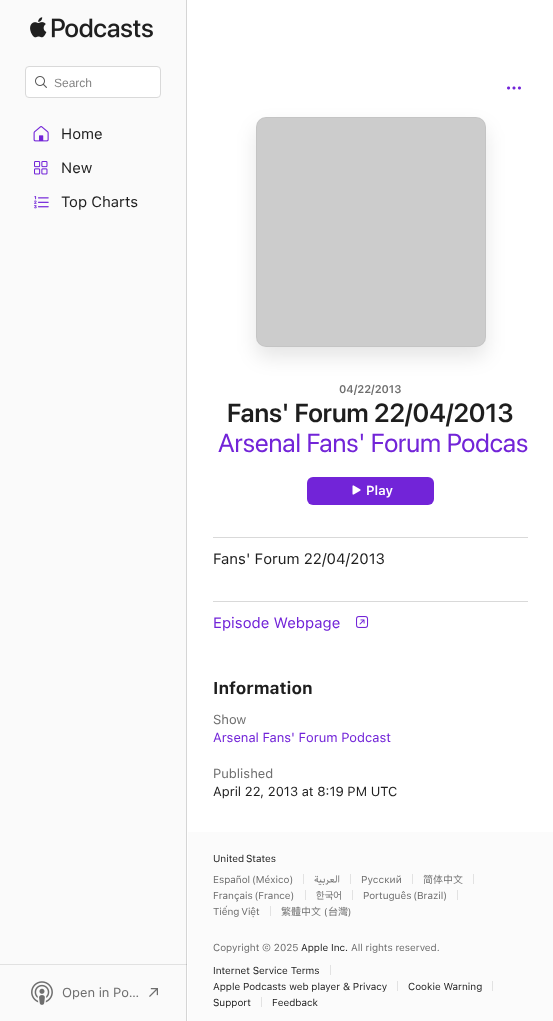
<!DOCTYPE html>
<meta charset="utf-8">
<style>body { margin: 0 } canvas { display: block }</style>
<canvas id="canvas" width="553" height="1021"></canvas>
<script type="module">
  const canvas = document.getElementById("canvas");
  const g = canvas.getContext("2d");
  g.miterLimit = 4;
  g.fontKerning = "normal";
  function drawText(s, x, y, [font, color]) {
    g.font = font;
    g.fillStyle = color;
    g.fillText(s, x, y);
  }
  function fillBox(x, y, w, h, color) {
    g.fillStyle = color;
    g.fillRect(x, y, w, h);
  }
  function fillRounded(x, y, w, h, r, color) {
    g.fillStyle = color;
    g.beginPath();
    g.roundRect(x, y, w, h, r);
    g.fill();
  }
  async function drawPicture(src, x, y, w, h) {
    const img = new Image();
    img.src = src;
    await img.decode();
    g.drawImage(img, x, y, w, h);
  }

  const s1 = ["12px Liberation Sans", "#858585"];
  const s2 = ["15px SF", "#1E1E1E"];
  const s3 = ["13px SF", "#6E6E6E"];
  const s4 = ["600 11px SF", "#6E6E6E"];
  const s5 = ["600 26px 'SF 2'", "#1E1E1E"];
  const s6 = ["26px 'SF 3'", "#7224D8"];
  const s7 = ["600 13px SF", "#FFFFFF"];
  const s8 = ["15px SF", "#7224D8"];
  const s9 = ["bold 17px SF", "#1E1E1E"];
  const s10 = ["13px SF", "#7224D8"];
  const s11 = ["13px SF", "#1E1E1E"];
  const s12 = ["10px SF", "#1E1E1E"];
  const s13 = ["10px SF", "#6E6E6E"];
  const s14 = ["10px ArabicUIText", "#6E6E6E"];
  const s15 = ["10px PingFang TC", "#6E6E6E"];
  const s16 = ["10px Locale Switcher", "#6E6E6E"];
  const s17 = ["10px 'SF 2'", "#6E6E6E"];

  fillBox(0, 0, 553, 1021, "#FFFFFF");
  fillBox(0, 0, 186, 1021, "#FAFAFA");
  fillBox(0, 964, 187, 1, "#E1E1E1");
  fillBox(186, 0, 1, 1021, "#D5D5D5");
  fillBox(186, 964, 1, 1, "#C0C0C0");
  await drawPicture("pic1.png", 30, 17, 123, 21);
  g.fillStyle = "#FFFFFF";
  g.beginPath();
  g.roundRect(25.5, 66.5, 135, 31, 3.5);
  g.fill();
  g.strokeStyle = "#D9D9D9";
  g.stroke();
  await drawPicture("pic2.png", 35, 76, 12, 12);
  drawText("Search", 54, 87, s1);
  await drawPicture("pic3.png", 33, 126, 16, 16);
  drawText("Home", 61, 139, s2);
  await drawPicture("pic4.png", 34, 161, 14, 14);
  drawText("New", 61, 173, s2);
  await drawPicture("pic5.png", 34, 196, 15, 13);
  drawText("Top Charts", 61, 207, s2);
  await drawPicture("pic6.png", 31, 981, 22, 24);
  drawText("Open in Po…", 62, 997, s3);
  await drawPicture("pic7.png", 149, 988, 9, 9);
  await drawPicture("pic8.png", 507, 86, 14, 4);
  g.fillStyle = "rgba(0, 0, 0, 0.1)";
  g.filter = "blur(10px)";
  g.beginPath();
  g.roundRect(256, 127, 230, 230, 10);
  g.fill();
  g.filter = "none";
  fillRounded(256, 117, 230, 230, 10, "#CCCCCC");
  g.beginPath();
  g.roundRect(256.5, 117.5, 229, 229, 9.5);
  g.strokeStyle = "rgba(128, 128, 128, 0.1)";
  g.stroke();
  drawText("04/22/2013", 339, 393, s4);
  drawText("Fans' Forum 22/04/2013", 227, 422, s5);
  drawText("Arsenal Fans' Forum Podcas", 218, 452, s6);
  fillRounded(307, 477, 127, 28, 6, "#7224D8");
  await drawPicture("pic9.png", 352, 485, 9, 10);
  drawText("Play", 366, 495, s7);
  fillBox(213, 537, 315, 1, "#D9D9D9");
  drawText("Fans' Forum 22/04/2013", 213, 564, s2);
  fillBox(213, 601, 315, 1, "#D9D9D9");
  drawText("Episode Webpage", 213, 628, s8);
  await drawPicture("pic10.png", 356, 616, 13, 12);
  drawText("Information", 213, 694, s9);
  drawText("Show", 213, 724, s3);
  drawText("Arsenal Fans' Forum Podcast", 213, 742, s10);
  drawText("Published", 213, 778, s3);
  drawText("April 22, 2013 at 8:19 PM UTC", 213, 796, s11);
  fillBox(188, 832, 365, 189, "#FBFBFB");
  g.wordSpacing = "-1px";
  drawText("United States", 213, 862, s12);
  drawText("Español (México)", 213, 883, s13);
  fillBox(303, 874, 1, 10, "#E2E2E2");
  g.wordSpacing = "0px";
  g.direction = "rtl";
  drawText("العربية", 340, 883, s14);
  fillBox(350, 874, 1, 10, "#E2E2E2");
  g.direction = "ltr";
  drawText("Русский", 361, 883, s13);
  fillBox(412, 874, 1, 10, "#E2E2E2");
  drawText("简体中文", 423, 883, s15);
  fillBox(473, 874, 1, 10, "#E2E2E2");
  g.wordSpacing = "-1px";
  drawText("Français (France)", 213, 899, s13);
  fillBox(305, 890, 1, 10, "#E2E2E2");
  g.wordSpacing = "0px";
  drawText("한국어", 316, 899, s16);
  fillBox(352, 890, 1, 10, "#E2E2E2");
  g.wordSpacing = "-1px";
  drawText("Português (Brazil)", 363, 899, s13);
  fillBox(457, 890, 1, 10, "#E2E2E2");
  drawText("Tiếng Việt", 213, 915, s13);
  fillBox(270, 906, 1, 10, "#E2E2E2");
  g.wordSpacing = "0px";
  drawText("繁體中文", 281, 915, s15);
  drawText("(", 324, 915, s17);
  drawText("台灣", 328, 915, s15);
  drawText(")", 348, 915, s17);
  drawText("Copyright © 2025", 213, 951, s13);
  drawText("Apple Inc.", 301, 951, s12);
  drawText("All rights reserved.", 351, 951, s13);
  drawText("Internet Service Terms", 213, 974, s12);
  fillBox(330, 965, 1, 10, "#E2E2E2");
  drawText("Apple Podcasts web player & Privacy", 213, 990, s12);
  fillBox(397, 981, 1, 10, "#E2E2E2");
  drawText("Cookie Warning", 408, 990, s12);
  fillBox(492, 981, 1, 10, "#E2E2E2");
  drawText("Support", 213, 1006, s12);
  fillBox(261, 997, 1, 10, "#E2E2E2");
  drawText("Feedback", 272, 1006, s12);
</script>
